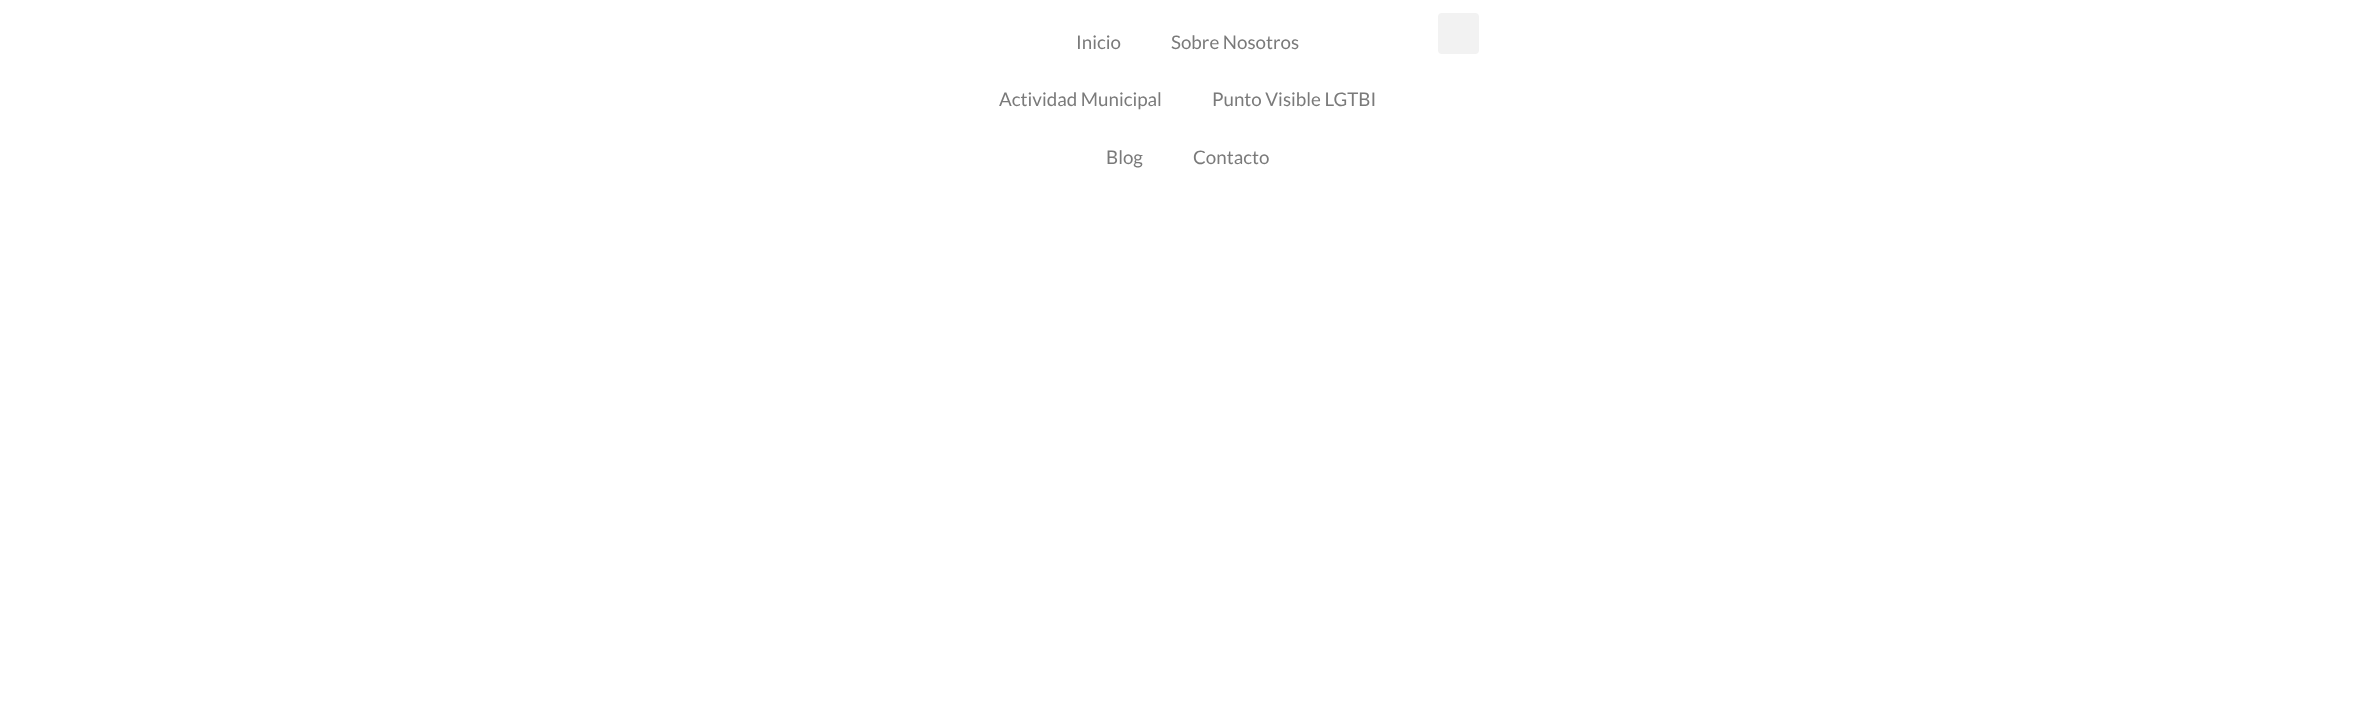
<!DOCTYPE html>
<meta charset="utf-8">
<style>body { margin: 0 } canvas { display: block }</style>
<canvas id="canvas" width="2374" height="724"></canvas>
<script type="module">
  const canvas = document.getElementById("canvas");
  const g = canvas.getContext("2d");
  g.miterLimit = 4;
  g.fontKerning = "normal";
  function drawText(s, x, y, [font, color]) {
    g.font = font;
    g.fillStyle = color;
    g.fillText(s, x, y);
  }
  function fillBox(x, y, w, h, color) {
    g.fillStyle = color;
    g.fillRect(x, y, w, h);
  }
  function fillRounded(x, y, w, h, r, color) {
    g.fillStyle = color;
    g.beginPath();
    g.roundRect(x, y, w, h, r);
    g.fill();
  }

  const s1 = ["18.75px Lato", "#7A7A7A"];

  fillBox(0, 0, 2374, 724, "#FFFFFF");
  drawText("Inicio", 1076, 49, s1);
  drawText("Sobre Nosotros", 1171, 49, s1);
  drawText("Actividad Municipal", 999, 106, s1);
  drawText("Punto Visible LGTBI", 1212, 106, s1);
  drawText("Blog", 1106, 164, s1);
  drawText("Contacto", 1193, 164, s1);
  fillRounded(1438, 13, 41, 41, 4, "#F2F2F2");
</script>
